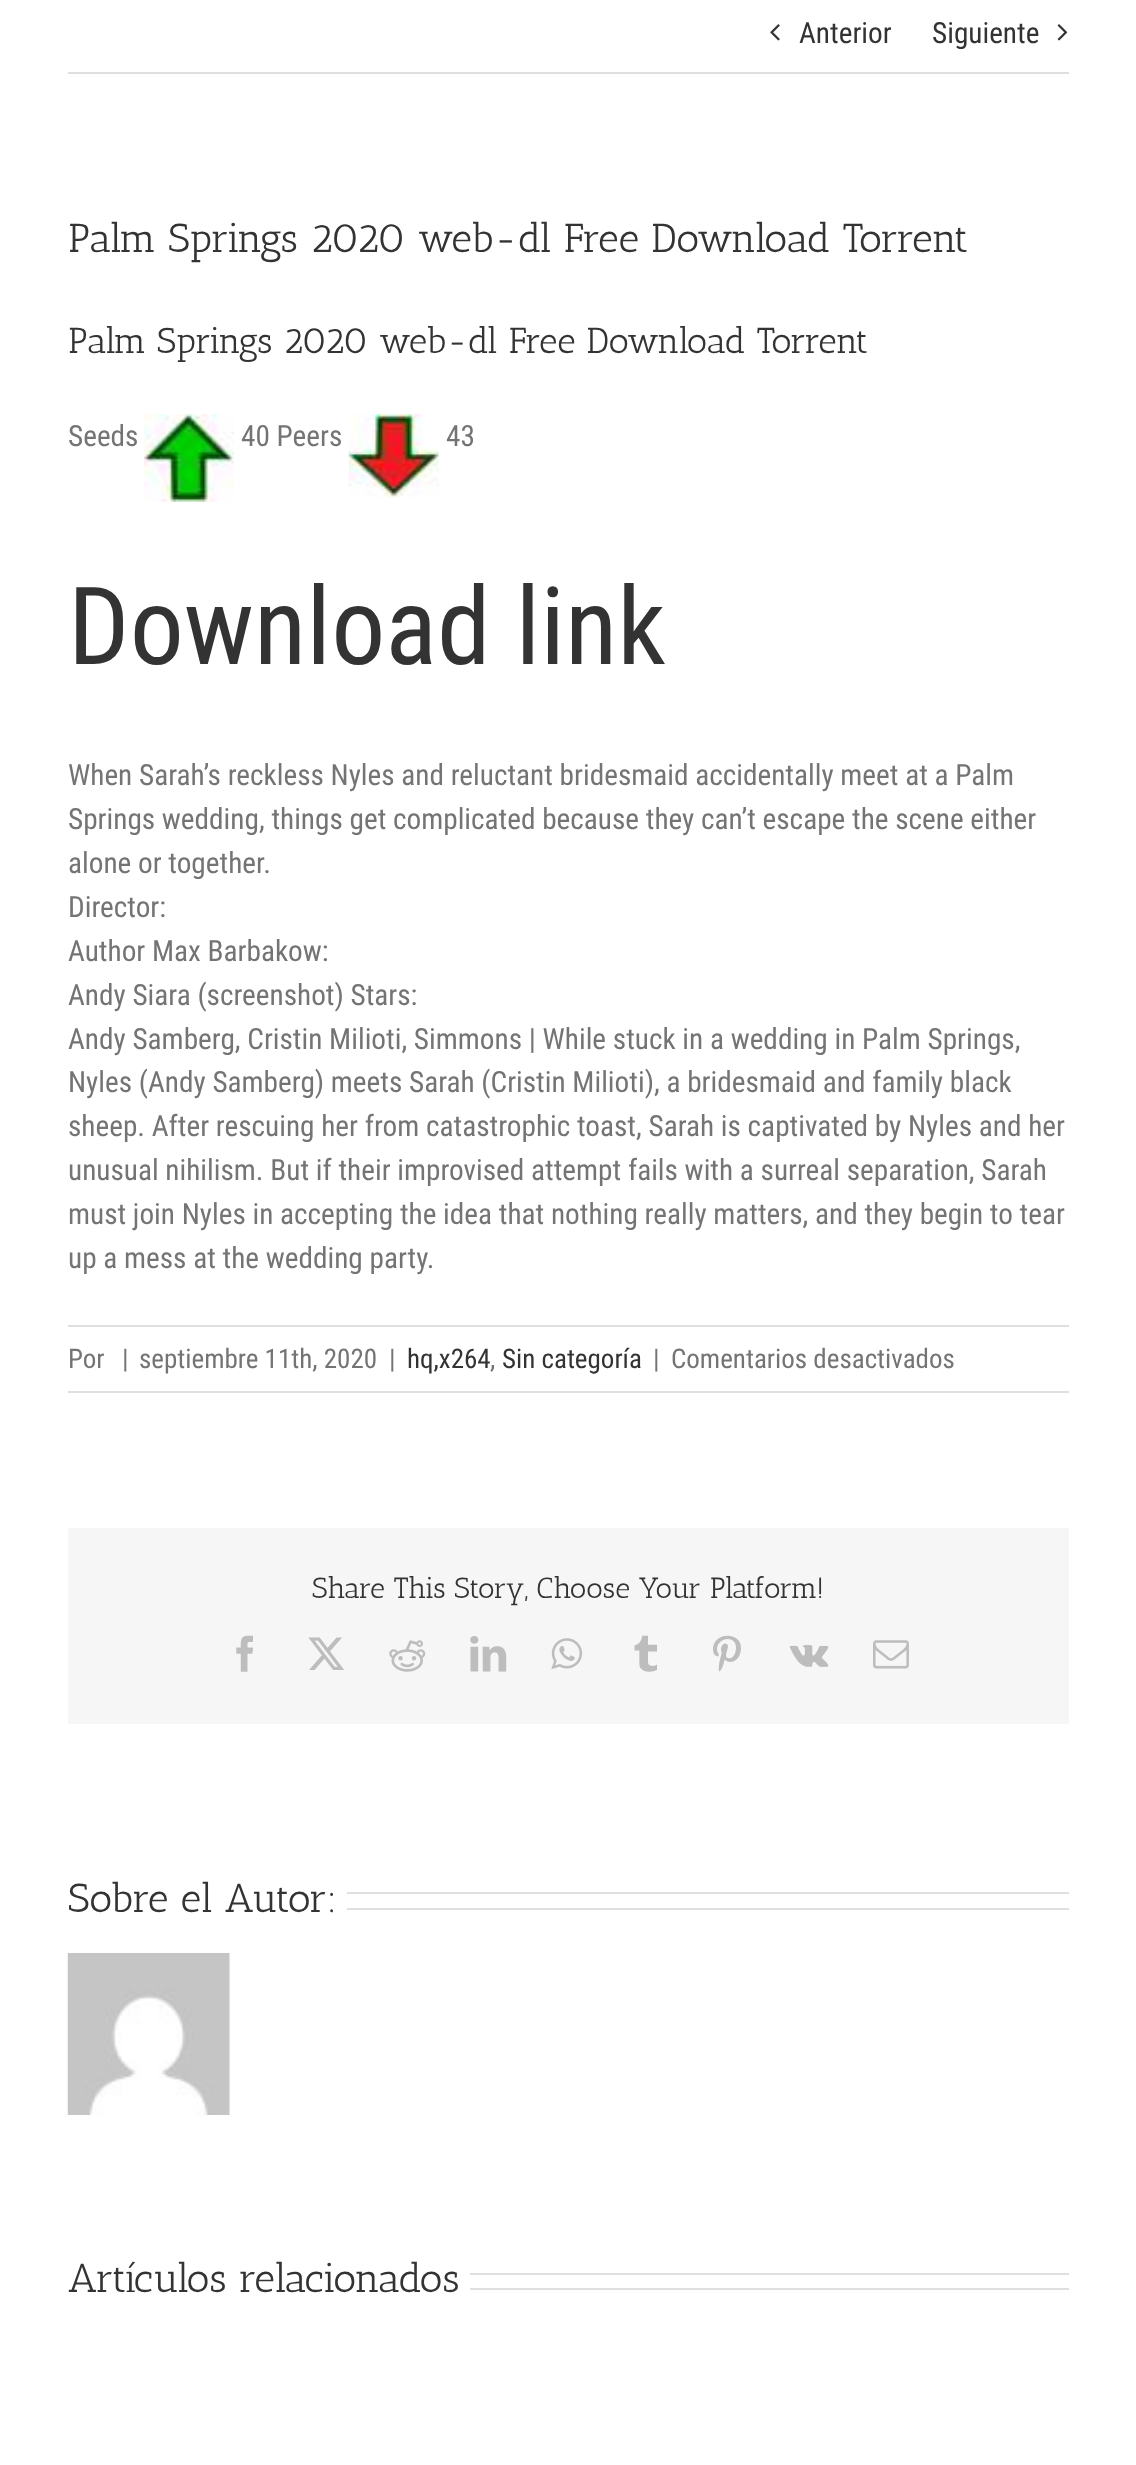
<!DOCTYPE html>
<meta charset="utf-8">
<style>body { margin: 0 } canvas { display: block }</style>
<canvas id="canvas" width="1136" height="2465"></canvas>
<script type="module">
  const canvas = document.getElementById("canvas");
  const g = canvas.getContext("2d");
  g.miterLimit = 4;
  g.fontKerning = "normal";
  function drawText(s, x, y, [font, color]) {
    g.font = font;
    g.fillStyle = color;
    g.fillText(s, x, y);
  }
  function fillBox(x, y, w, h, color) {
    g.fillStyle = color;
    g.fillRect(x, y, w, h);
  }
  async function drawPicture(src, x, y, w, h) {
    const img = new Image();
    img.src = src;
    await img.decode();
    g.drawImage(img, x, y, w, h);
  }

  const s1 = ["29.25px Roboto Condensed", "#333333"];
  const s2 = ["40.5px Antic Slab", "#333333"];
  const s3 = ["36px Antic Slab", "#333333"];
  const s4 = ["29.25px Roboto Condensed", "#747474"];
  const s5 = ["108px Roboto Condensed", "#333333"];
  const s6 = ["27px Roboto Condensed", "#747474"];
  const s7 = ["27px Roboto Condensed", "#333333"];
  const s8 = ["29.25px Antic Slab", "#333333"];

  fillBox(0, 0, 1136, 2465, "#FFFFFF");
  fillBox(68, 72, 1001, 2, "#E0DEDE");
  await drawPicture("pic1.png", 770, 24, 10, 17);
  drawText("Anterior", 799, 43, s1);
  drawText("Siguiente", 932, 43, s1);
  await drawPicture("pic2.png", 1057, 24, 11, 17);
  drawText("Palm Springs 2020 web-dl Free Download Torrent", 68, 252, s2);
  drawText("Palm Springs 2020 web-dl Free Download Torrent", 68, 353, s3);
  drawText("Seeds", 68, 446, s4);
  await drawPicture("pic3.png", 144, 414, 90, 88);
  drawText("40 Peers", 241, 446, s4);
  await drawPicture("pic4.png", 348, 414, 91, 84);
  drawText("43", 446, 446, s4);
  drawText("Download link", 68, 664, s5);
  drawText("When Sarah’s reckless Nyles and reluctant bridesmaid accidentally meet at a Palm", 68, 785, s4);
  drawText("Springs wedding, things get complicated because they can’t escape the scene either", 68, 829, s4);
  drawText("alone or together.", 68, 873, s4);
  drawText("Director:", 68, 917, s4);
  drawText("Author Max Barbakow:", 68, 961, s4);
  drawText("Andy Siara (screenshot) Stars:", 68, 1005, s4);
  drawText("Andy Samberg, Cristin Milioti, Simmons | While stuck in a wedding in Palm Springs,", 68, 1049, s4);
  drawText("Nyles (Andy Samberg) meets Sarah (Cristin Milioti), a bridesmaid and family black", 68, 1092, s4);
  drawText("sheep. After rescuing her from catastrophic toast, Sarah is captivated by Nyles and her", 68, 1136, s4);
  drawText("unusual nihilism. But if their improvised attempt fails with a surreal separation, Sarah", 68, 1180, s4);
  drawText("must join Nyles in accepting the idea that nothing really matters, and they begin to tear", 68, 1224, s4);
  drawText("up a mess at the wedding party.", 68, 1268, s4);
  fillBox(68, 1325, 1001, 2, "#E0DEDE");
  fillBox(68, 1391, 1001, 2, "#E0DEDE");
  drawText("Por", 68, 1368, s6);
  drawText("|", 122, 1368, s6);
  drawText("septiembre 11th, 2020", 139, 1368, s6);
  drawText("|", 389, 1368, s6);
  drawText("hq,x264", 407, 1368, s7);
  drawText(",", 490, 1368, s6);
  drawText("Sin categoría", 502, 1368, s7);
  drawText("|", 653, 1368, s6);
  drawText("Comentarios desactivados", 671, 1368, s6);
  fillBox(68, 1528, 1001, 196, "#F6F6F6");
  drawText("Share This Story, Choose Your Platform!", 312, 1598, s8);
  await drawPicture("pic5.png", 236, 1635, 17, 37);
  await drawPicture("pic6.png", 308, 1637, 36, 33);
  await drawPicture("pic7.png", 389, 1640, 37, 32);
  await drawPicture("pic8.png", 470, 1636, 37, 36);
  await drawPicture("pic9.png", 551, 1638, 32, 32);
  await drawPicture("pic10.png", 634, 1635, 23, 37);
  await drawPicture("pic11.png", 713, 1635, 28, 37);
  await drawPicture("pic12.png", 789, 1645, 40, 22);
  await drawPicture("pic13.png", 873, 1640, 36, 29);
  drawText("Sobre el Autor:", 68, 1912, s2);
  fillBox(347, 1892, 722, 2, "#E0DEDE");
  fillBox(347, 1908, 722, 2, "#E0DEDE");
  await drawPicture("pic14.png", 67, 1953, 163, 162);
  drawText("Artículos relacionados", 68, 2292, s2);
  fillBox(470, 2273, 599, 2, "#E0DEDE");
  fillBox(470, 2288, 599, 2, "#E0DEDE");
</script>
